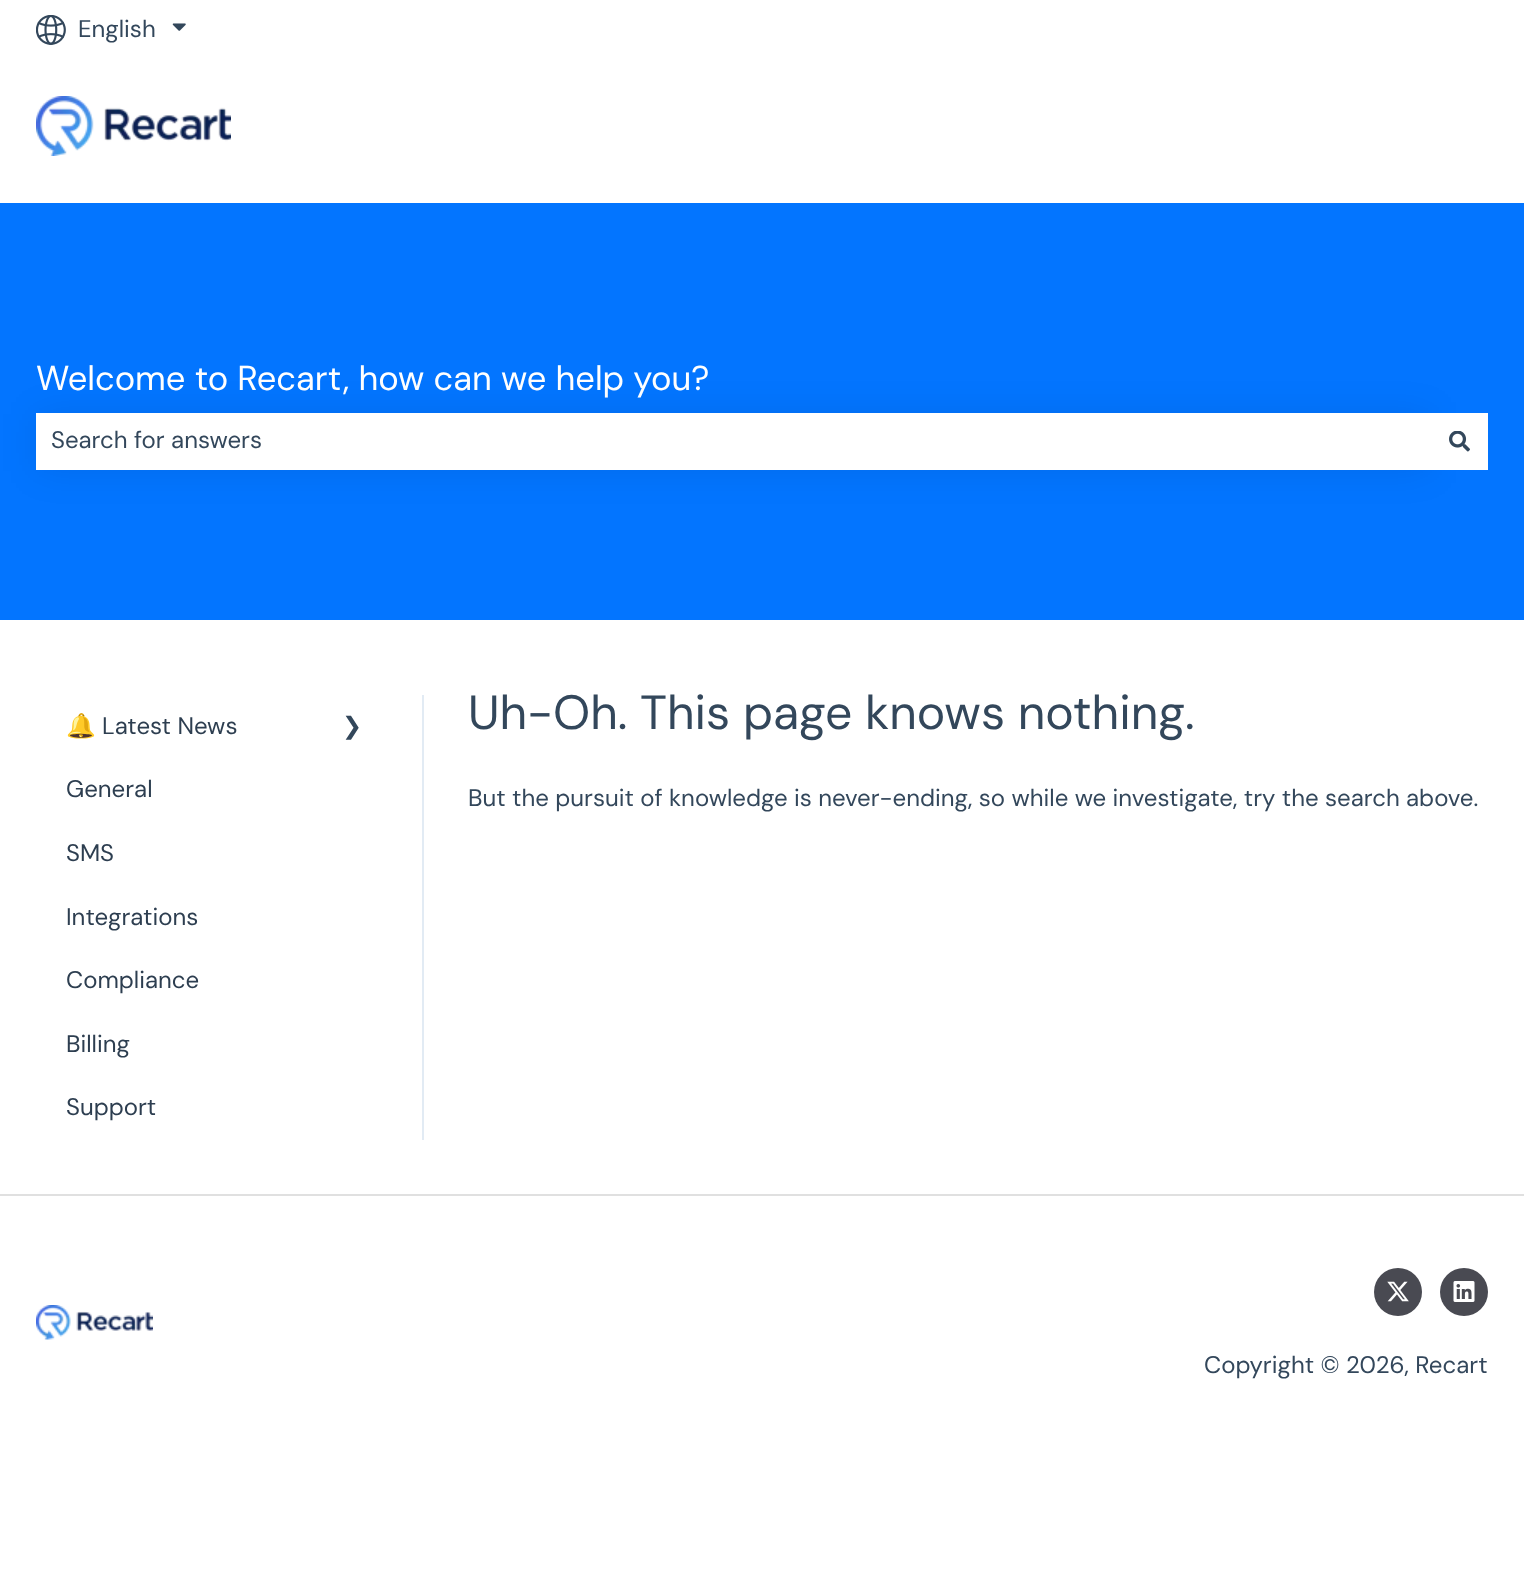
<!DOCTYPE html>
<meta charset="utf-8">
<style>body { margin: 0 } canvas { display: block }</style>
<canvas id="canvas" width="1524" height="1573"></canvas>
<script type="module">
  const canvas = document.getElementById("canvas");
  const g = canvas.getContext("2d");
  g.miterLimit = 4;
  g.fontKerning = "normal";
  function drawText(s, x, y, [font, color]) {
    g.font = font;
    g.fillStyle = color;
    g.fillText(s, x, y);
  }
  function fillBox(x, y, w, h, color) {
    g.fillStyle = color;
    g.fillRect(x, y, w, h);
  }
  async function drawPicture(src, x, y, w, h) {
    const img = new Image();
    img.src = src;
    await img.decode();
    g.drawImage(img, x, y, w, h);
  }

  const s1 = ["24px DM Sans", "#33475B"];
  const s2 = ["34.5px DM Sans", "#FFFFFF"];
  const s3 = ["24px Noto Color Emoji", "#2D3E50"];
  const s4 = ["24px DM Sans", "#2D3E50"];
  const s5 = ["24px DejaVu Sans", "#33475B"];
  const s6 = ["48px DM Sans", "#33475B"];

  fillBox(0, 0, 1524, 1573, "#FFFFFF");
  await drawPicture("pic1.png", 36, 15, 30, 30);
  drawText("English", 78, 37, s1);
  await drawPicture("pic2.png", 172, 23, 14, 8);
  await drawPicture("pic3.png", 36, 96, 195, 60);
  fillBox(0, 203, 1524, 417, "#0375FF");
  drawText("Welcome to Recart, how can we help you?", 36, 390, s2);
  g.fillStyle = "rgba(0, 0, 0, 0.08)";
  g.filter = "blur(18px)";
  g.beginPath();
  g.rect(36, 414, 1395, 57);
  g.fill();
  g.filter = "none";
  fillBox(36, 413, 1452, 57, "#FFFFFF");
  drawText("Search for answers", 51, 448, s1);
  await drawPicture("pic4.png", 1449, 431, 21, 21);
  fillBox(422, 695, 2, 445, "#E2EBF4");
  drawText("🔔", 66, 734, s3);
  drawText("Latest News", 102, 734, s4);
  drawText("❯", 342, 734, s5);
  drawText("General", 66, 797, s4);
  drawText("SMS", 66, 861, s4);
  drawText("Integrations", 66, 925, s4);
  drawText("Compliance", 66, 988, s4);
  drawText("Billing", 66, 1052, s4);
  drawText("Support", 66, 1115, s4);
  drawText("Uh-Oh. This page knows nothing.", 468, 729, s6);
  drawText("But the pursuit of knowledge is never-ending, so while we investigate, try the search above.", 468, 806, s1);
  fillBox(0, 1194, 1524, 2, "#E0E0E0");
  await drawPicture("pic5.png", 36, 1305, 117, 35);
  g.fillStyle = "#494A52";
  g.beginPath();
  g.arc(1398, 1292, 24, 0, Math.PI * 2);
  g.fill();
  await drawPicture("pic6.png", 1387, 1281, 22, 21);
  g.beginPath();
  g.arc(1464, 1292, 24, 0, Math.PI * 2);
  g.fill();
  await drawPicture("pic7.png", 1453, 1281, 22, 21);
  drawText("Copyright © 2026, Recart", 1204, 1373, s1);
</script>
